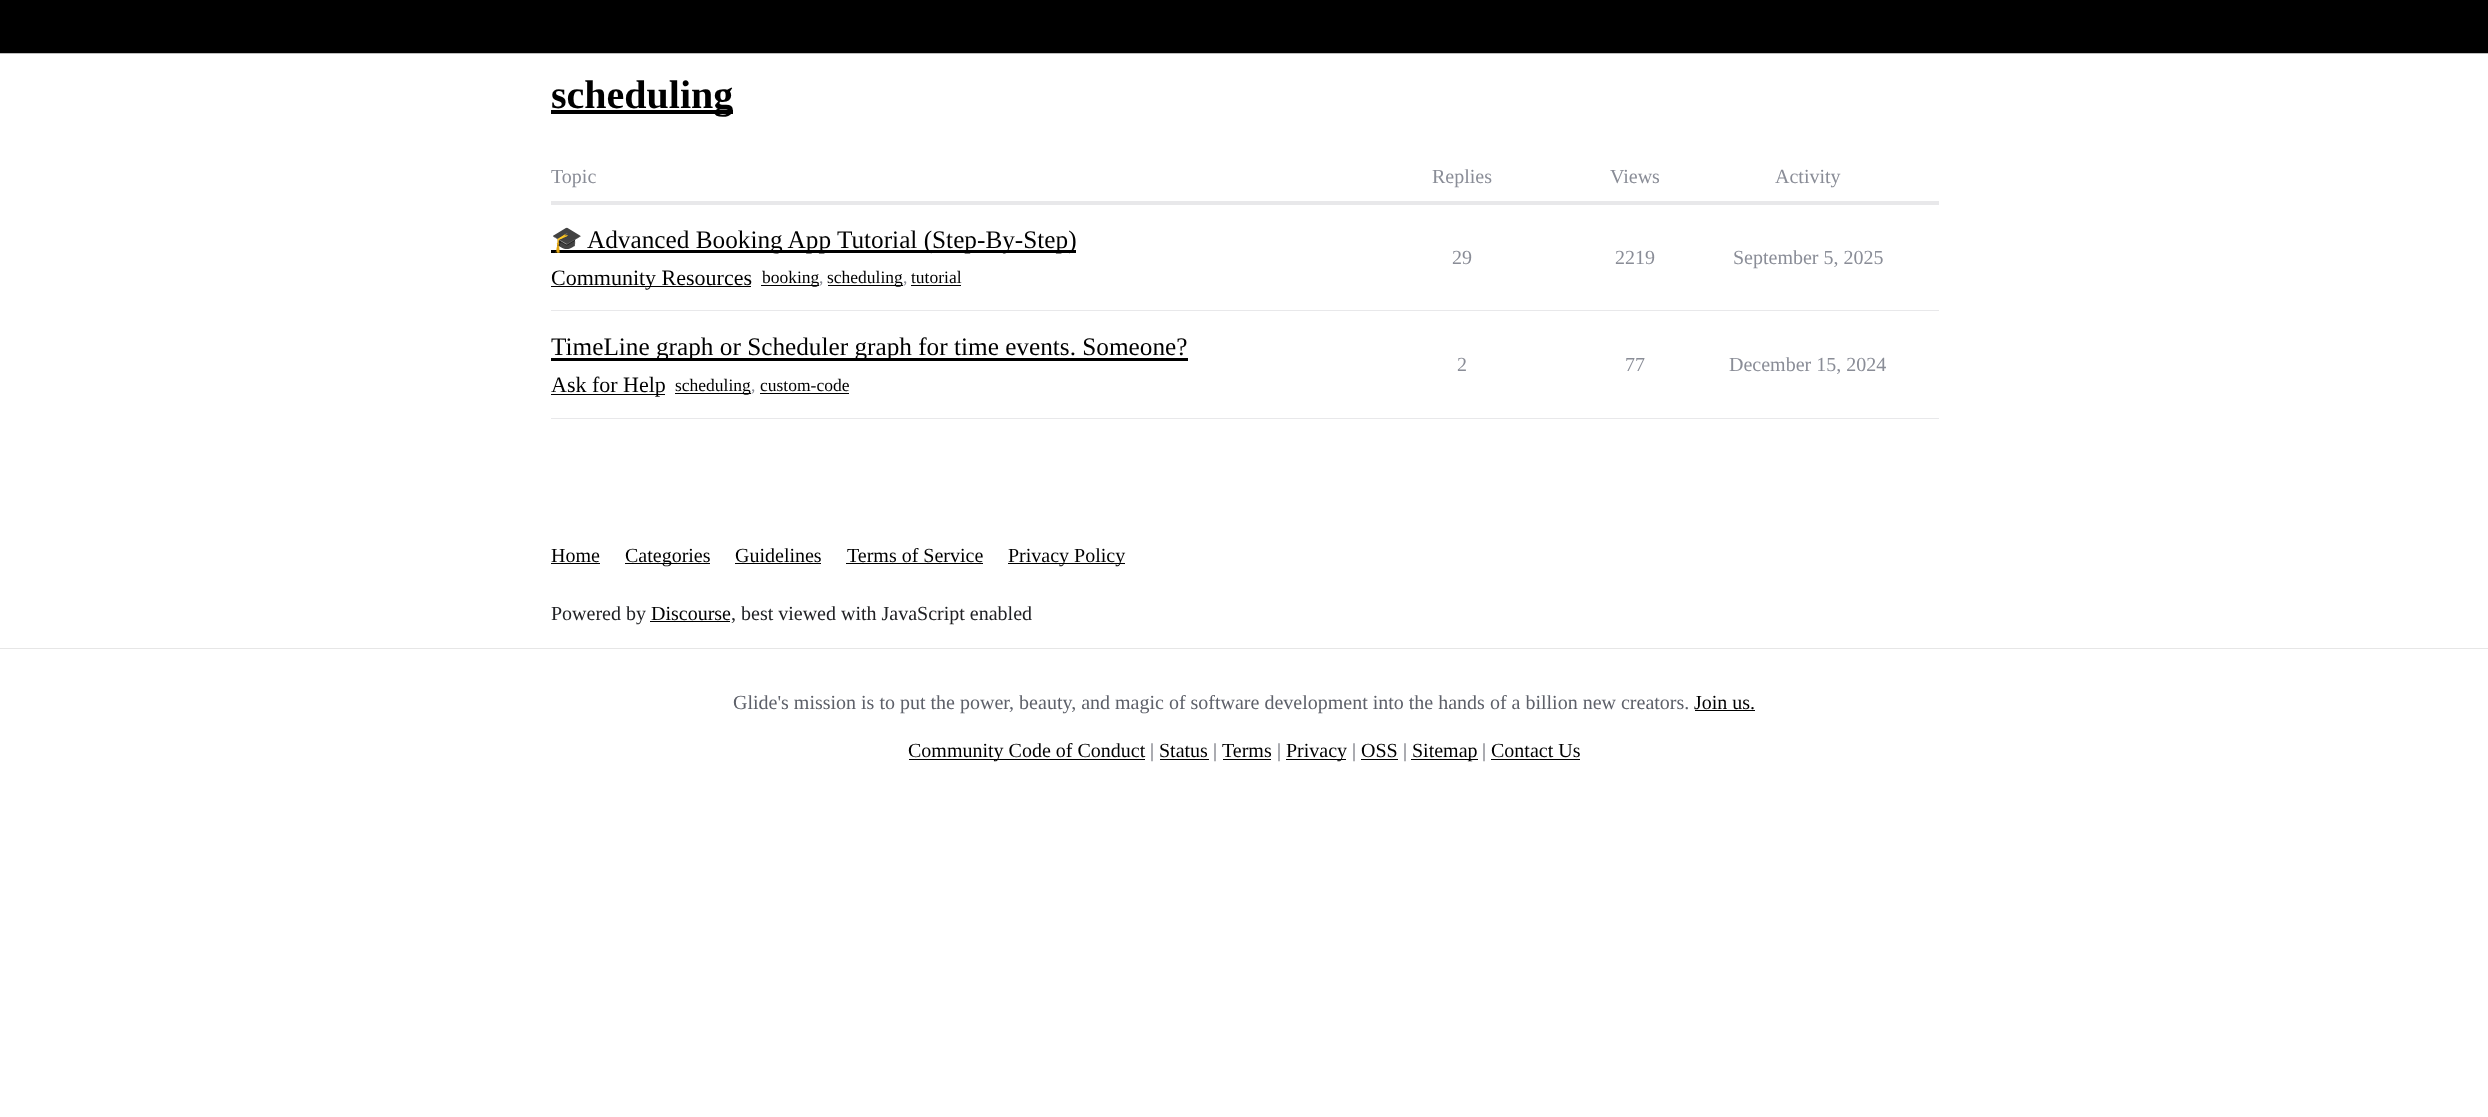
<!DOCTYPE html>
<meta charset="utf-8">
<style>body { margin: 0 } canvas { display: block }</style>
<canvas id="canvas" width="2488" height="1117"></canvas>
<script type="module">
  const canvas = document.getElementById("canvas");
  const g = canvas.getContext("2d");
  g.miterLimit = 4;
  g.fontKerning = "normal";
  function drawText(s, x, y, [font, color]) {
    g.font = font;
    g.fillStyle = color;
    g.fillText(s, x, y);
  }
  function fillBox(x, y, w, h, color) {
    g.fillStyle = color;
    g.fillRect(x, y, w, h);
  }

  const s1 = ["bold 40px Liberation Serif", "#000000"];
  const s2 = ["20px Liberation Serif", "#8A8D97"];
  const s3 = ["25.25px Noto Color Emoji", "#000000"];
  const s4 = ["25.25px Liberation Serif", "#000000"];
  const s5 = ["22px Liberation Serif", "#000000"];
  const s6 = ["17.5px Liberation Serif", "#000000"];
  const s7 = ["17.5px Liberation Serif", "#8A8D97"];
  const s8 = ["20px Liberation Serif", "#000000"];
  const s9 = ["20px Liberation Serif", "#202124"];
  const s10 = ["20px Liberation Serif", "#5E616A"];

  fillBox(0, 0, 2488, 1117, "#FFFFFF");
  fillBox(0, 0, 2488, 53, "#000000");
  fillBox(0, 53, 2488, 1, "#BDBDBD");
  fillBox(551, 110, 182, 4, "#000000");
  drawText("scheduling", 551, 108, s1);
  drawText("Topic", 551, 183, s2);
  drawText("Replies", 1432, 183, s2);
  drawText("Views", 1610, 183, s2);
  drawText("Activity", 1775, 183, s2);
  fillBox(551, 201, 1388, 4, "#E8E8EA");
  fillBox(551, 310, 1388, 1, "#E8E8EA");
  fillBox(551, 250, 525, 3, "#000000");
  g.save();
  g.beginPath();
  g.rect(551, 163, 1388, 256);
  g.clip();
  drawText("🎓", 551, 248, s3);
  g.restore();
  drawText("Advanced Booking App Tutorial (Step-By-Step)", 587, 248, s4);
  fillBox(551, 286, 200, 1, "#000000");
  drawText("Community Resources", 551, 285, s5);
  fillBox(761, 285, 58, 1, "#000000");
  drawText("booking", 762, 283, s6);
  drawText(",", 819, 283, s7);
  fillBox(828, 285, 75, 1, "#000000");
  drawText("scheduling", 827, 283, s6);
  drawText(",", 903, 283, s7);
  drawText("tutorial", 911, 283, s6);
  fillBox(911, 285, 50, 1, "#000000");
  drawText("29", 1452, 264, s2);
  drawText("2219", 1615, 264, s2);
  drawText("September 5, 2025", 1733, 264, s2);
  fillBox(551, 418, 1388, 1, "#E8E8EA");
  fillBox(551, 358, 637, 3, "#000000");
  drawText("TimeLine graph or Scheduler graph for time events. Someone?", 551, 355, s4);
  fillBox(551, 394, 114, 1, "#000000");
  drawText("Ask for Help", 551, 392, s5);
  fillBox(675, 393, 76, 1, "#000000");
  drawText("scheduling", 675, 391, s6);
  drawText(",", 751, 391, s7);
  drawText("custom-code", 760, 391, s6);
  fillBox(760, 393, 89, 1, "#000000");
  drawText("2", 1457, 371, s2);
  drawText("77", 1625, 371, s2);
  drawText("December 15, 2024", 1729, 371, s2);
  drawText("Home", 551, 562, s8);
  fillBox(551, 563, 49, 1, "#000000");
  fillBox(625, 563, 85, 1, "#000000");
  drawText("Categories", 625, 562, s8);
  drawText("Guidelines", 735, 562, s8);
  fillBox(735, 563, 86, 1, "#000000");
  drawText("Terms of Service", 847, 562, s8);
  fillBox(846, 563, 137, 1, "#000000");
  fillBox(1008, 563, 117, 1, "#000000");
  drawText("Privacy Policy", 1008, 562, s8);
  drawText("Powered by", 551, 620, s9);
  drawText("Discourse", 651, 620, s8);
  fillBox(650, 621, 80, 1, "#000000");
  drawText(", best viewed with JavaScript enabled", 731, 620, s9);
  fillBox(0, 648, 2488, 1, "#E6E6E6");
  drawText("Glide's mission is to put the power, beauty, and magic of software development into the hands of a billion new creators.", 733, 709, s10);
  drawText("Join us.", 1694, 709, s8);
  fillBox(1695, 710, 60, 1, "#000000");
  fillBox(909, 759, 236, 1, "#000000");
  drawText("Community Code of Conduct", 908, 757, s8);
  drawText("|", 1150, 757, s10);
  drawText("Status", 1159, 757, s8);
  fillBox(1160, 759, 49, 1, "#000000");
  drawText("|", 1213, 757, s10);
  drawText("Terms", 1222, 757, s8);
  fillBox(1223, 759, 48, 1, "#000000");
  drawText("|", 1277, 757, s10);
  fillBox(1286, 759, 60, 1, "#000000");
  drawText("Privacy", 1286, 757, s8);
  drawText("|", 1352, 757, s10);
  drawText("OSS", 1361, 757, s8);
  fillBox(1361, 759, 37, 1, "#000000");
  drawText("|", 1403, 757, s10);
  fillBox(1411, 759, 67, 1, "#000000");
  drawText("Sitemap", 1412, 757, s8);
  drawText("|", 1482, 757, s10);
  drawText("Contact Us", 1491, 757, s8);
  fillBox(1491, 759, 89, 1, "#000000");
</script>
